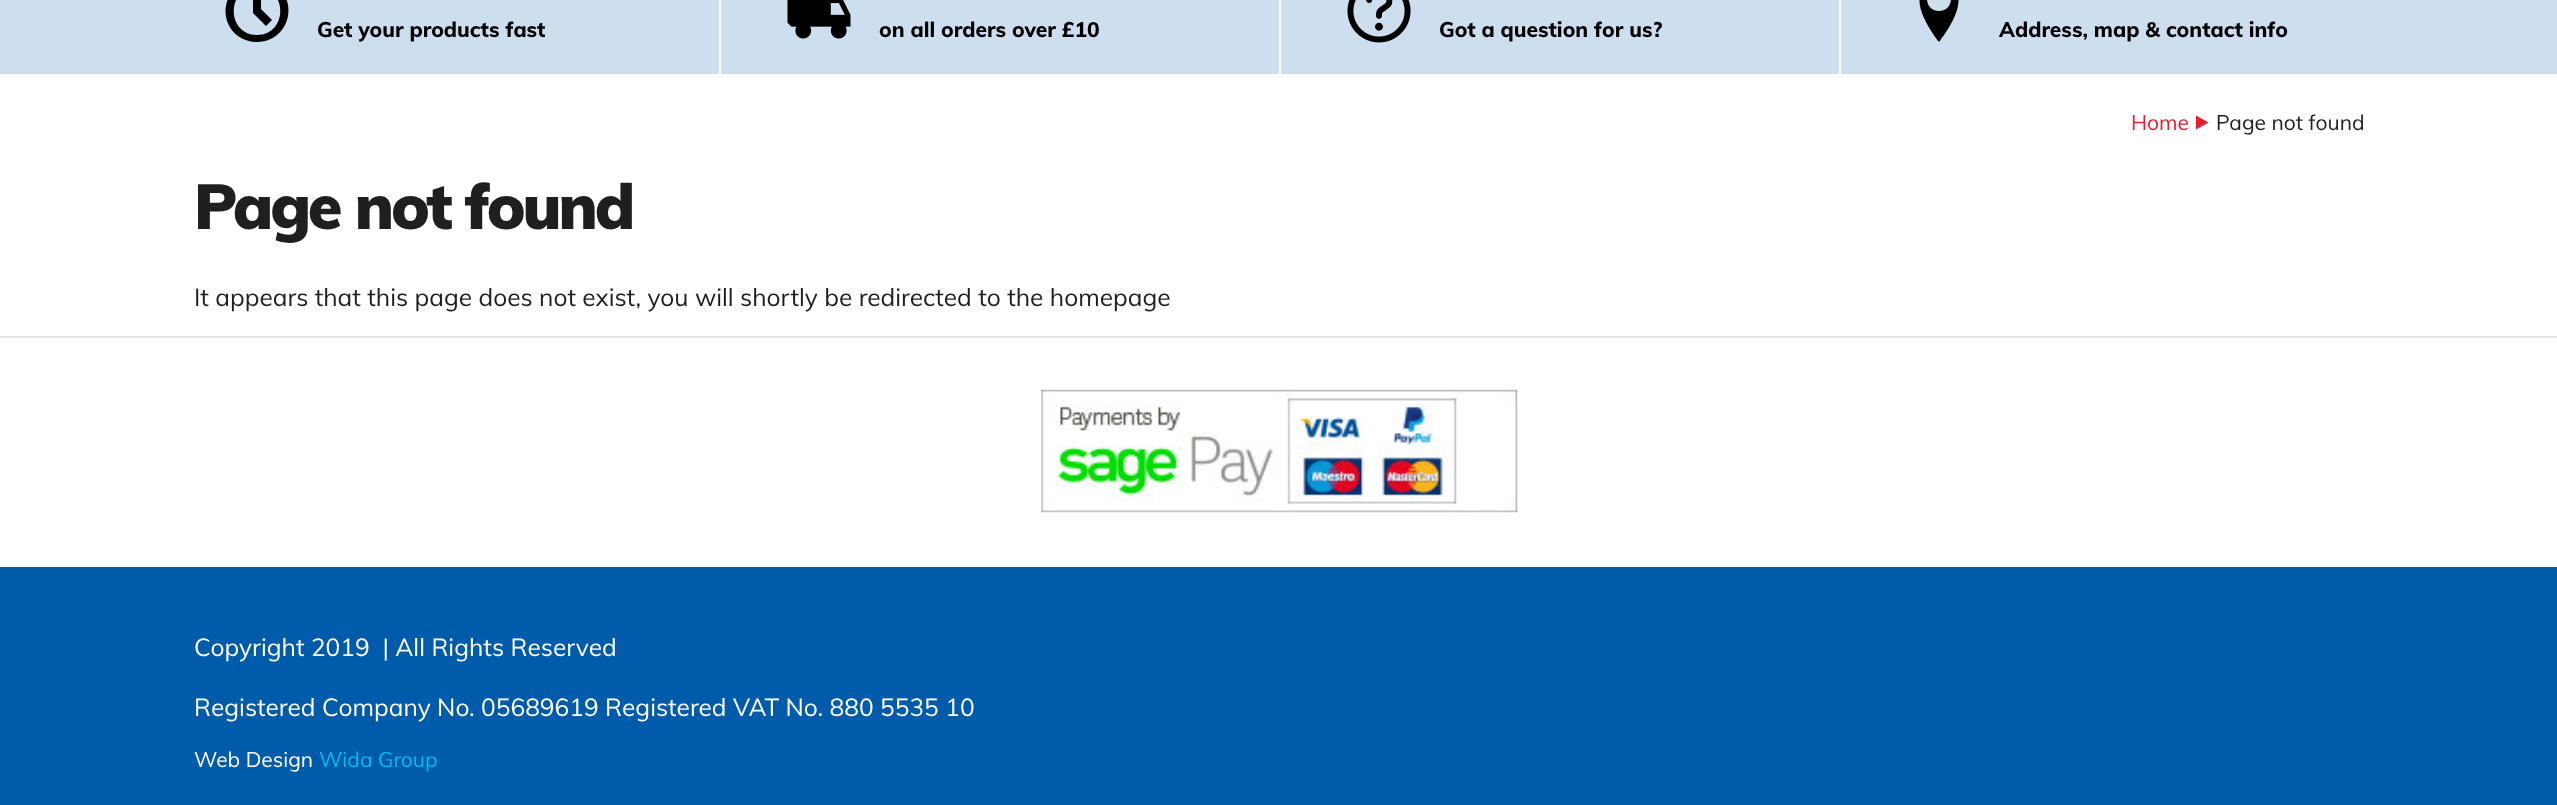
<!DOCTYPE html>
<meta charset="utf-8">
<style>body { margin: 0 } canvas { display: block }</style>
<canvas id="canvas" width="2557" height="805"></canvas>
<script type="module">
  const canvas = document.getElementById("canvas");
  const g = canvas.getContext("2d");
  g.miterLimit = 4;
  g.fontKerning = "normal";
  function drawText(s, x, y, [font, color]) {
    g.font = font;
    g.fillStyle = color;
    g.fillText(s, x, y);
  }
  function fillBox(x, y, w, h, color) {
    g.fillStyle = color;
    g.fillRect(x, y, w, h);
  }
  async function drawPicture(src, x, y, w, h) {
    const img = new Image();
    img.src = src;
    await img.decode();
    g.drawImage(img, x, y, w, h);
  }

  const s1 = ["800 21px Muli", "#000000"];
  const s2 = ["21px Muli", "#EC1B30"];
  const s3 = ["21px Muli", "#1F1F1F"];
  const s4 = ["900 63px Muli", "#1F1F1F"];
  const s5 = ["24.5px Muli", "#1F1F1F"];
  const s6 = ["24.5px Muli", "#FFFFFF"];
  const s7 = ["21px Muli", "#FFFFFF"];
  const s8 = ["21px Muli", "#01BAF3"];

  fillBox(0, 0, 2557, 805, "#FFFFFF");
  fillBox(0, 0, 2557, 74, "#CDDEEE");
  g.fillStyle = "#000000";
  g.beginPath();
  g.moveTo(266, 26);
  g.lineTo(253, 13);
  g.lineTo(253, -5);
  g.lineTo(261, -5);
  g.lineTo(261, 9);
  g.lineTo(272, 20);
  g.closePath();
  g.moveTo(257, -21);
  g.bezierCurveTo(227, -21, 214, 18, 238, 36);
  g.bezierCurveTo(244, 40, 250, 42, 257, 42);
  g.bezierCurveTo(287, 42, 300, 4, 276, -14);
  g.bezierCurveTo(271, -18, 264, -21, 257, -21);
  g.closePath();
  g.moveTo(257, 35);
  g.bezierCurveTo(226, 35, 226, -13, 257, -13);
  g.bezierCurveTo(288, -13, 288, 35, 257, 35);
  g.closePath();
  g.fill();
  drawText("Get your products fast", 317, 37, s1);
  fillBox(719, 0, 2, 74, "#FFFFFF");
  await drawPicture("pic1.png", 787, 0, 64, 39);
  drawText("on all orders over £10", 879, 37, s1);
  fillBox(1279, 0, 2, 74, "#FFFFFF");
  await drawPicture("pic2.png", 1347, 0, 64, 43);
  drawText("Got a question for us?", 1439, 37, s1);
  fillBox(1839, 0, 2, 74, "#FFFFFF");
  g.fillStyle = "#000000";
  g.beginPath();
  g.moveTo(1939, -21);
  g.bezierCurveTo(1934, -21, 1929, -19, 1925, -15);
  g.bezierCurveTo(1910, 1, 1929, 29, 1939, 42);
  g.bezierCurveTo(1949, 29, 1968, 1, 1953, -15);
  g.bezierCurveTo(1949, -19, 1944, -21, 1939, -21);
  g.closePath();
  g.moveTo(1939, 11);
  g.bezierCurveTo(1923, 11, 1923, -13, 1939, -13);
  g.bezierCurveTo(1955, -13, 1955, 11, 1939, 11);
  g.closePath();
  g.fill();
  drawText("Address, map & contact info", 1999, 37, s1);
  drawText("Home", 2131, 130, s2);
  g.beginPath();
  g.moveTo(2196, 129.5);
  g.lineTo(2196, 115.5);
  g.lineTo(2208.5, 122.5);
  g.closePath();
  g.fill();
  drawText("Page not found", 2216, 130, s3);
  g.letterSpacing = "-3.1px";
  drawText("Page not found", 194, 229, s4);
  g.letterSpacing = "0px";
  drawText("It appears that this page does not exist, you will shortly be redirected to the homepage", 194, 306, s5);
  fillBox(0, 336, 2557, 2, "#E3E3E3");
  await drawPicture("pic3.png", 1041, 389, 477, 124);
  fillBox(0, 567, 2557, 238, "#005BAA");
  drawText("Copyright 2019  | All Rights Reserved", 194, 656, s6);
  drawText("Registered Company No. 05689619 Registered VAT No. 880 5535 10", 194, 716, s6);
  drawText("Web Design", 194, 767, s7);
  drawText("Wida Group", 319, 767, s8);
</script>
